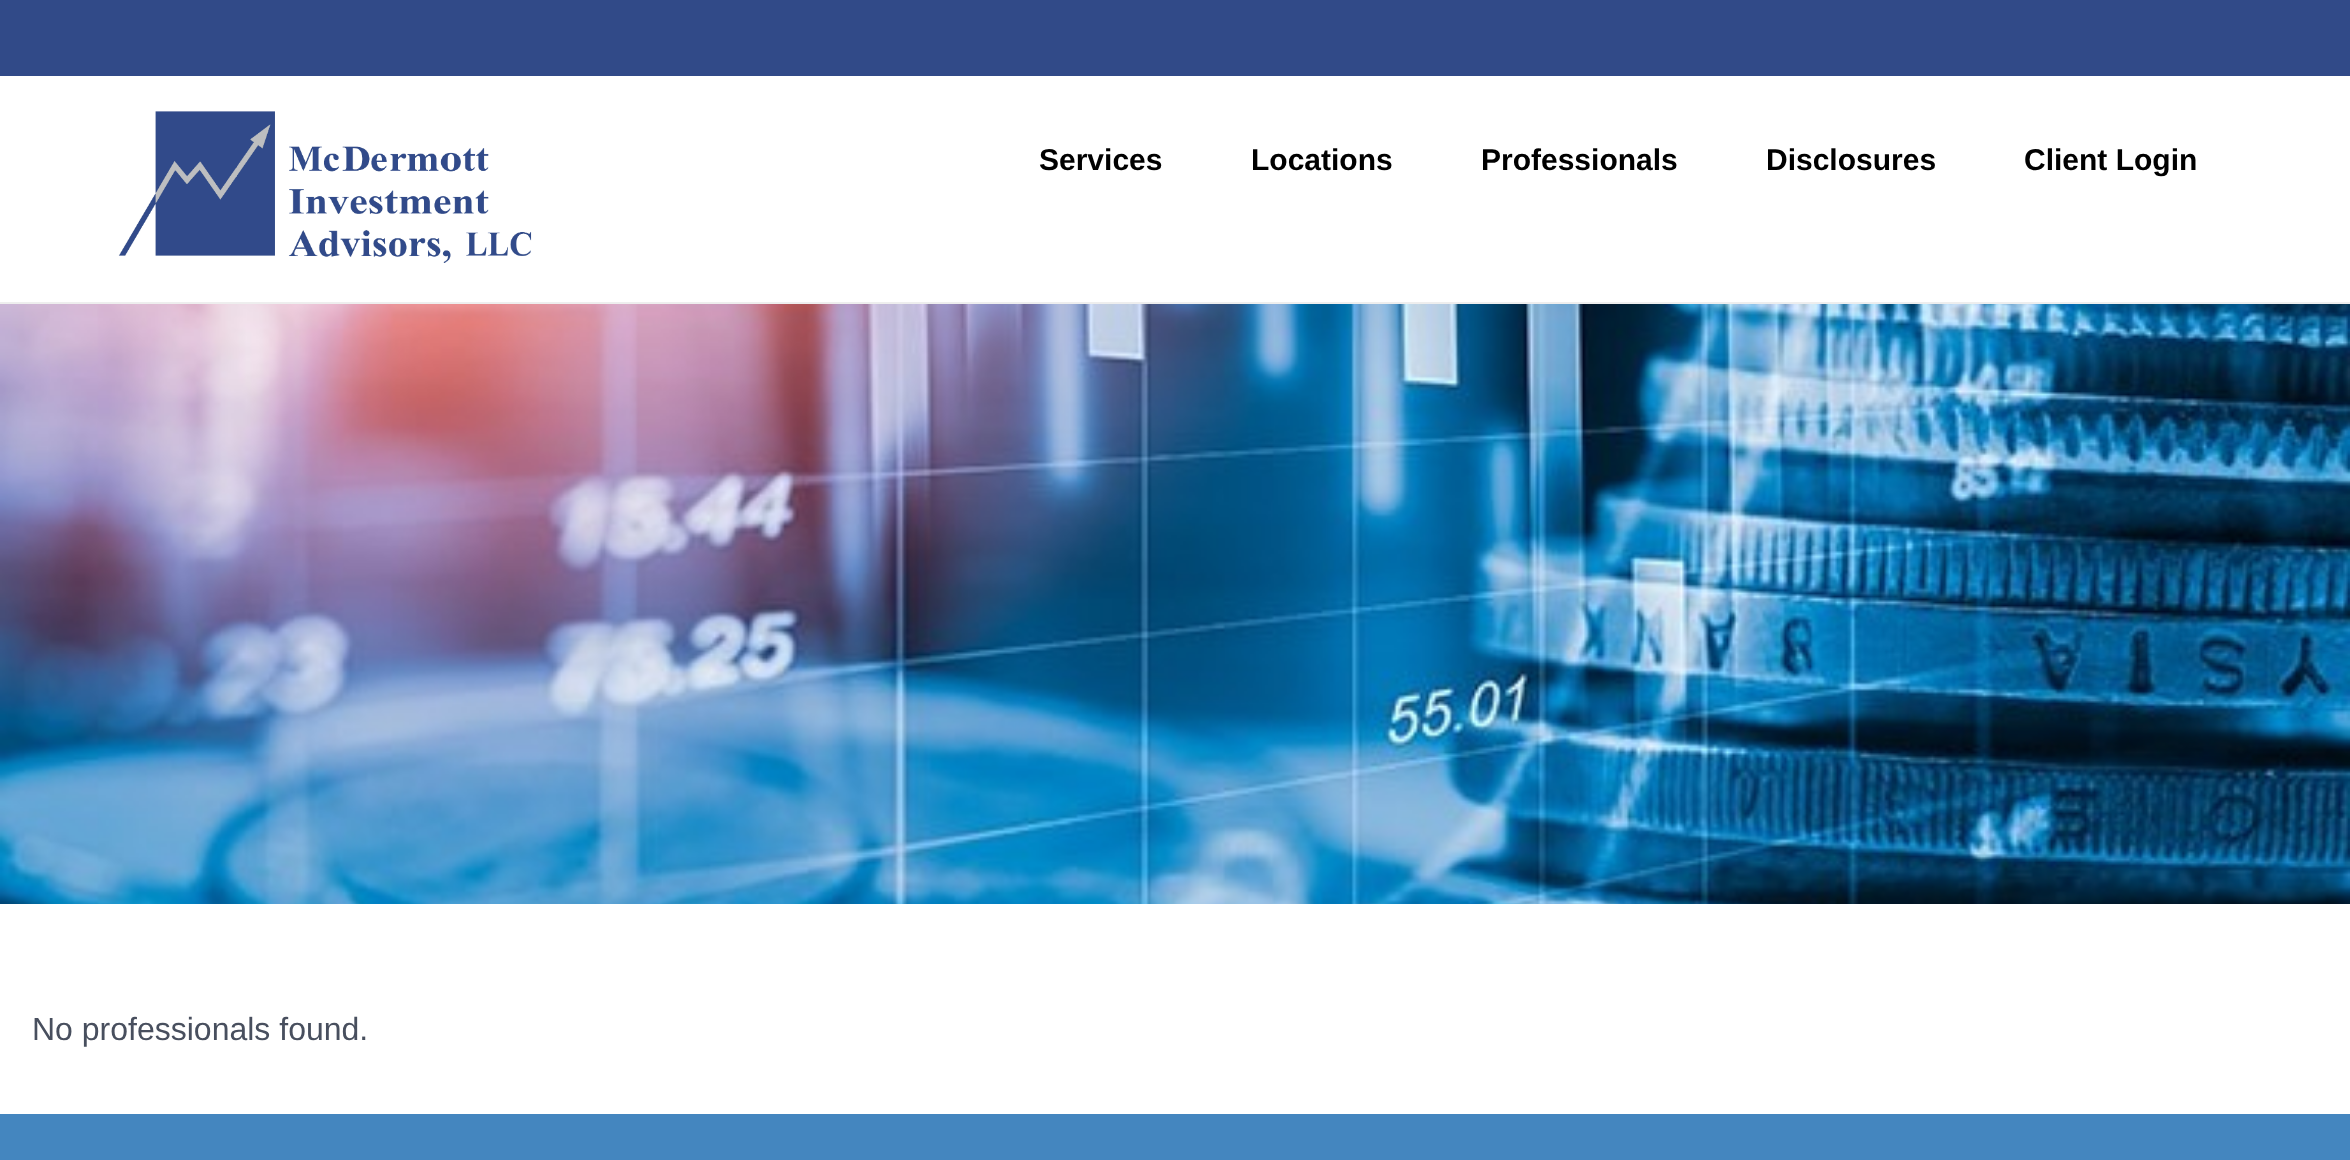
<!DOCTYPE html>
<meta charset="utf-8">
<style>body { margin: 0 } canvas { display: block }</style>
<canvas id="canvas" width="2350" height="1160"></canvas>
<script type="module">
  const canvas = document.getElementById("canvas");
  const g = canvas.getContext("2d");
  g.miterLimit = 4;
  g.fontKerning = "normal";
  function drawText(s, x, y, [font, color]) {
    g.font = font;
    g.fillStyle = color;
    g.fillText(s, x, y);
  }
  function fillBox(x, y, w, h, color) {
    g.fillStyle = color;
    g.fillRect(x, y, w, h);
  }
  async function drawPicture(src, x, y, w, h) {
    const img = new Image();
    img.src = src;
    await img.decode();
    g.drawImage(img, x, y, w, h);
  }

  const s1 = ["bold 30px Liberation Sans", "#000000"];
  const s2 = ["32px Liberation Sans", "#484F5E"];

  fillBox(0, 0, 2350, 1160, "#FFFFFF");
  fillBox(0, 302, 2350, 2, "#EEEEEE");
  fillBox(0, 0, 2350, 76, "#314A88");
  await drawPicture("pic1.png", 118, 111, 414, 152);
  drawText("Services", 1039, 170, s1);
  drawText("Locations", 1251, 170, s1);
  drawText("Professionals", 1481, 170, s1);
  drawText("Disclosures", 1766, 170, s1);
  drawText("Client Login", 2024, 170, s1);
  await drawPicture("pic2.png", 0, 304, 2350, 600);
  drawText("No professionals found.", 32, 1040, s2);
  fillBox(0, 1114, 2350, 46, "#4486BF");
</script>
